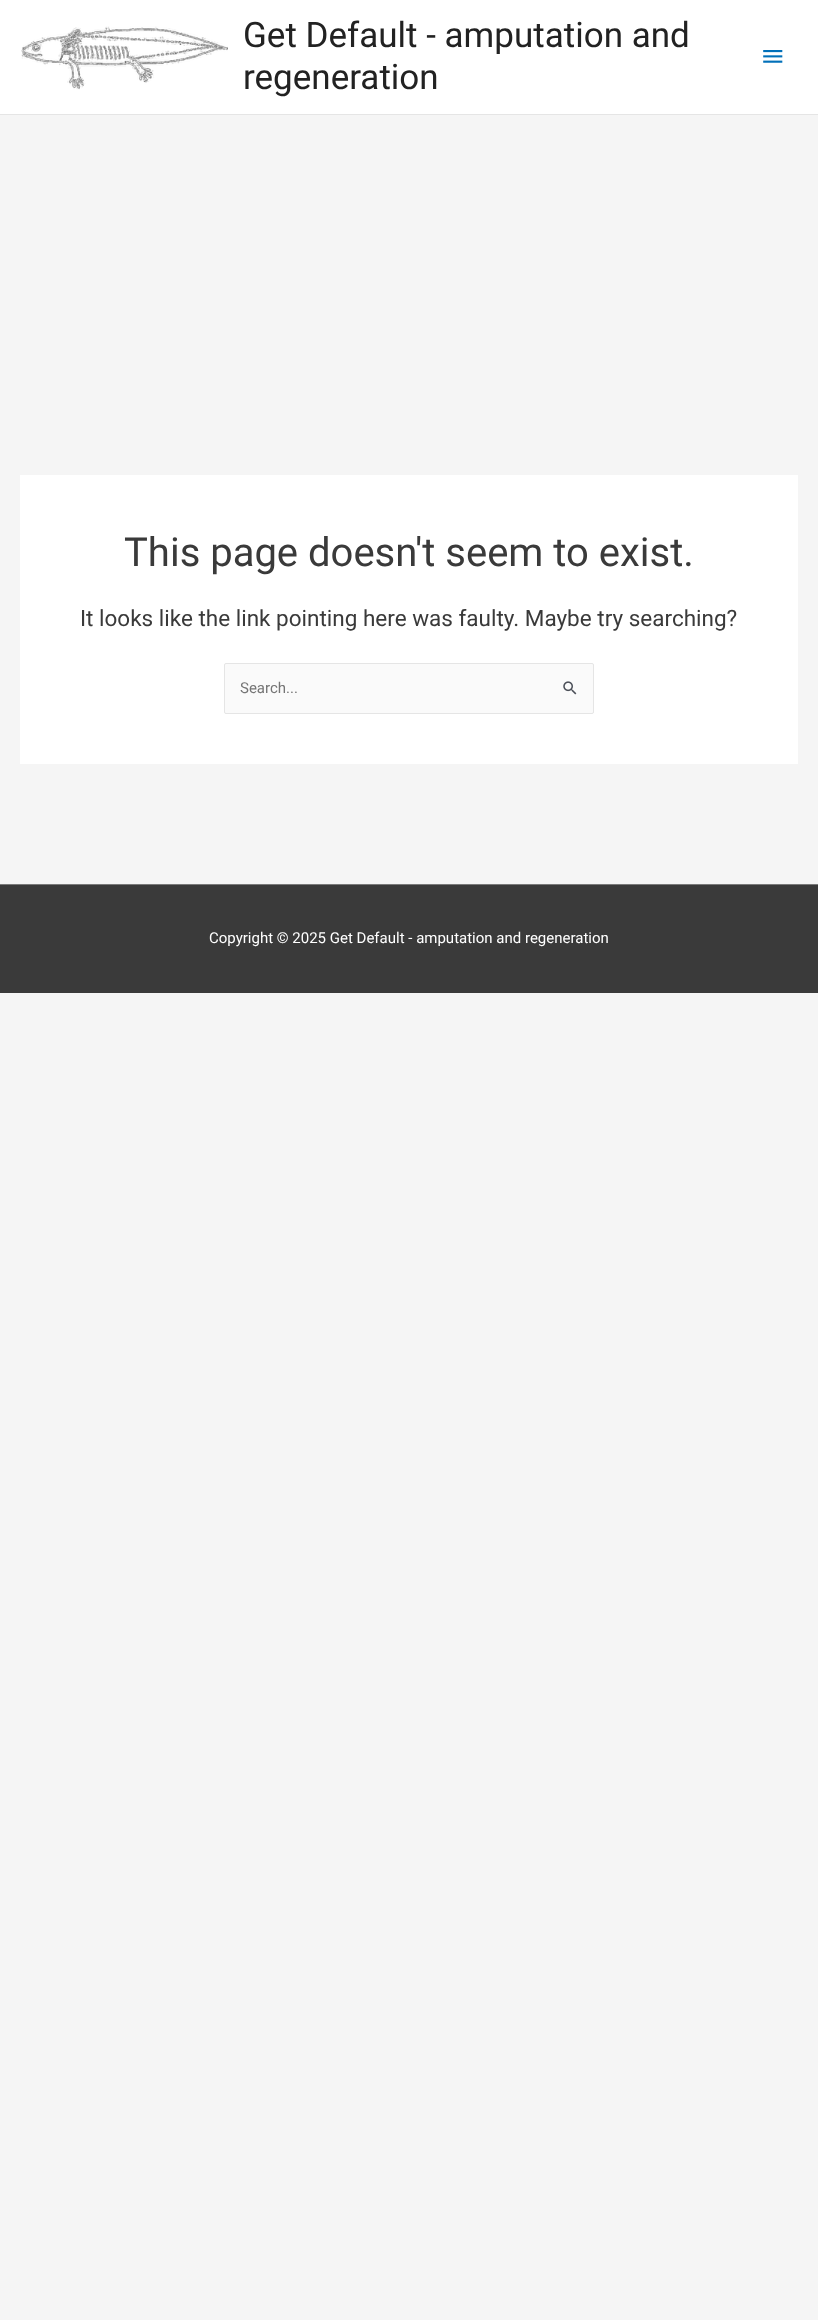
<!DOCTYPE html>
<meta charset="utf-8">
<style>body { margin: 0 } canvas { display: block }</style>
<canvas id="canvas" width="818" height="2320"></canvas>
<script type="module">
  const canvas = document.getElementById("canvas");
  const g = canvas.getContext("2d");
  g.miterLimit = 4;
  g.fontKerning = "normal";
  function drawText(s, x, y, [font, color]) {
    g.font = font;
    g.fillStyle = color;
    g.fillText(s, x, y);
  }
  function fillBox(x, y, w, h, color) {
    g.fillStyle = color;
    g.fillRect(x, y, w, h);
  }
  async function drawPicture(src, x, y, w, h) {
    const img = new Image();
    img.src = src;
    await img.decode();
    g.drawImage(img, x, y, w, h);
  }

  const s1 = ["35px Roboto", "#222222"];
  const s2 = ["40px Roboto", "#3A3A3A"];
  const s3 = ["22.5px Roboto", "#3A3A3A"];
  const s4 = ["15px Roboto", "#757575"];
  const s5 = ["15px Roboto", "#FFFFFF"];

  fillBox(0, 0, 818, 2320, "#F5F5F5");
  fillBox(0, 0, 818, 114, "#FFFFFF");
  fillBox(0, 114, 818, 1, "#E5E5E5");
  await drawPicture("pic1.png", 21, 26, 207, 64);
  drawText("Get Default - amputation and", 243, 47, s1);
  drawText("regeneration", 243, 89, s1);
  await drawPicture("pic2.png", 763, 50, 20, 13);
  fillBox(20, 475, 778, 289, "#FFFFFF");
  drawText("This page doesn't seem to exist.", 124, 566, s2);
  drawText("It looks like the link pointing here was faulty. Maybe try searching?", 80, 626, s3);
  g.fillStyle = "#FAFAFA";
  g.beginPath();
  g.roundRect(224.5, 663.5, 369, 50, 1.5);
  g.fill();
  g.strokeStyle = "#E5E5E5";
  g.stroke();
  drawText("Search...", 240, 693, s4);
  await drawPicture("pic3.png", 563, 681, 14, 14);
  fillBox(0, 884, 818, 1, "#7A7A7A");
  fillBox(0, 885, 818, 108, "#3A3A3A");
  drawText("Copyright © 2025 Get Default - amputation and regeneration", 209, 943, s5);
</script>
